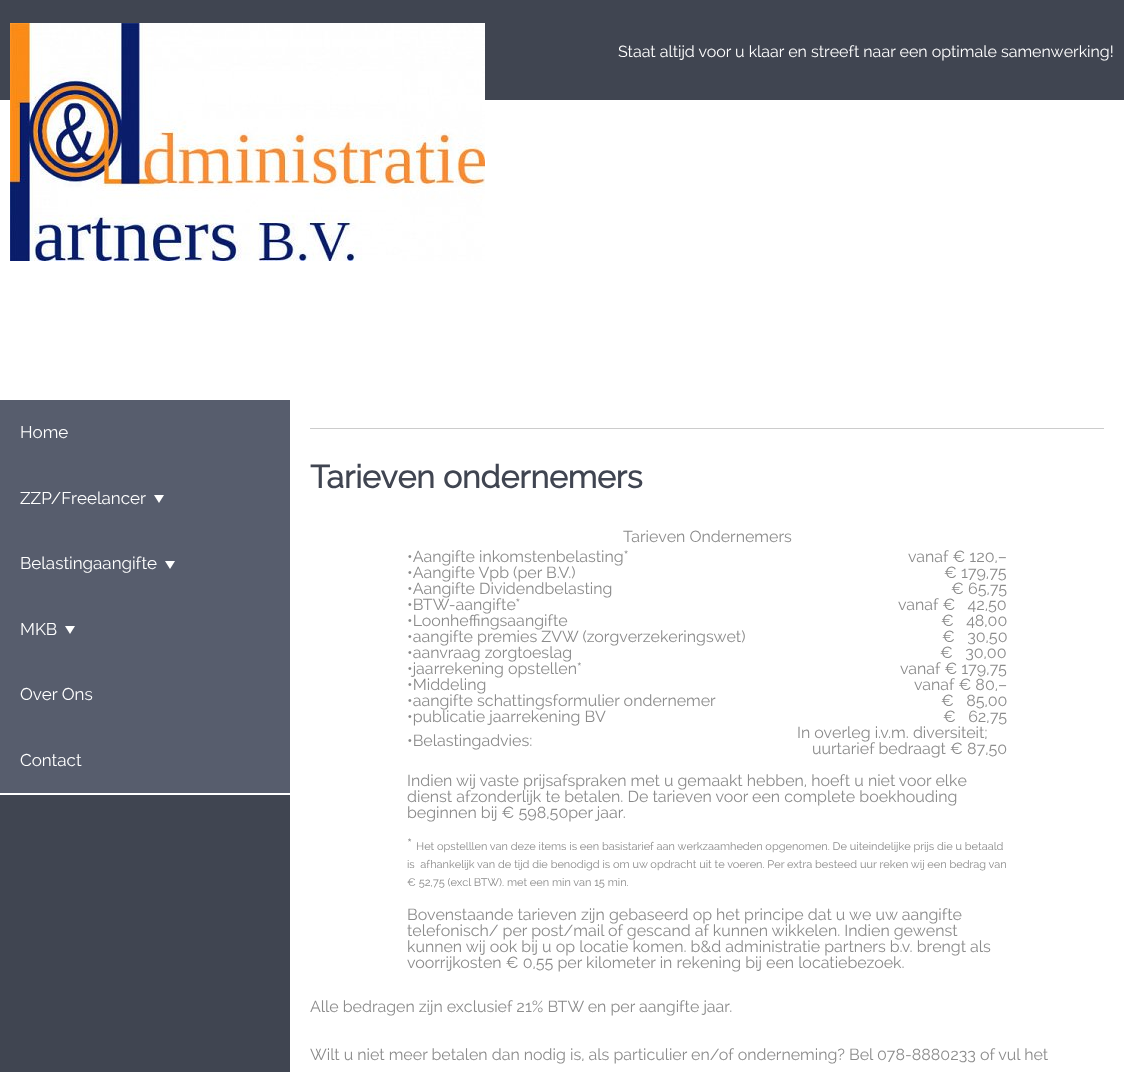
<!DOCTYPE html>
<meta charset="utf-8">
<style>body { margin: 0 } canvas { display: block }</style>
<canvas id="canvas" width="1124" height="1072"></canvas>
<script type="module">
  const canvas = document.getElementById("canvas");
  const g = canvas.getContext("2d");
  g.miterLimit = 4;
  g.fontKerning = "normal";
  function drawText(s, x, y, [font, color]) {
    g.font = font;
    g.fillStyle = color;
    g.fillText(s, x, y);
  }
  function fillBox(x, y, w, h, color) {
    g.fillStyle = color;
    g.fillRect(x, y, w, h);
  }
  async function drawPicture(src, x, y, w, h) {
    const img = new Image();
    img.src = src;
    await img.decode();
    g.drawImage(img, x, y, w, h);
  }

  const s1 = ["16px Raleway", "#FFFFFF"];
  const s2 = ["17px Raleway", "#FFFFFF"];
  const s3 = ["bold 32px Raleway", "#404551"];
  const s4 = ["16px Raleway", "#8B8B8B"];
  const s5 = ["11px Raleway", "#8B8B8B"];

  fillBox(0, 0, 1124, 1072, "#FFFFFF");
  fillBox(0, 0, 1124, 100, "#404551");
  await drawPicture("pic1.png", 10, 23, 475, 238);
  drawText("Staat altijd voor u klaar en streeft naar een optimale samenwerking!", 618, 57, s1);
  fillBox(0, 795, 290, 277, "#404551");
  fillBox(0, 400, 290, 393, "#575D6D");
  drawText("Home", 20, 438, s2);
  drawText("ZZP/Freelancer", 20, 504, s2);
  g.beginPath();
  g.moveTo(154, 495);
  g.lineTo(164, 495);
  g.lineTo(159, 503);
  g.closePath();
  g.fill();
  drawText("Belastingaangifte", 20, 569, s2);
  g.beginPath();
  g.moveTo(165, 561);
  g.lineTo(175, 561);
  g.lineTo(170, 569);
  g.closePath();
  g.fill();
  drawText("MKB", 20, 635, s2);
  g.beginPath();
  g.moveTo(65, 626);
  g.lineTo(75, 626);
  g.lineTo(70, 634);
  g.closePath();
  g.fill();
  drawText("Over Ons", 20, 700, s2);
  drawText("Contact", 20, 766, s2);
  fillBox(310, 428, 794, 1, "#CCCCCC");
  drawText("Tarieven ondernemers", 310, 488, s3);
  drawText("Tarieven Ondernemers", 623, 542, s4);
  drawText("•Aangifte inkomstenbelasting*", 407, 562, s4);
  drawText("vanaf € 120,–", 908, 562, s4);
  drawText("•Aangifte Vpb (per B.V.)", 407, 578, s4);
  drawText("€ 179,75", 944, 578, s4);
  drawText("•Aangifte Dividendbelasting", 407, 594, s4);
  drawText("€ 65,75", 951, 594, s4);
  drawText("•BTW-aangifte*", 407, 610, s4);
  drawText("vanaf €   42,50", 898, 610, s4);
  drawText("•Loonheffingsaangifte", 407, 626, s4);
  drawText("€   48,00", 941, 626, s4);
  drawText("•aangifte premies ZVW (zorgverzekeringswet)", 407, 642, s4);
  drawText("€   30,50", 942, 642, s4);
  drawText("•aanvraag zorgtoeslag", 407, 658, s4);
  drawText("€   30,00", 940, 658, s4);
  drawText("•jaarrekening opstellen*", 407, 674, s4);
  drawText("vanaf € 179,75", 900, 674, s4);
  drawText("•Middeling", 407, 690, s4);
  drawText("vanaf € 80,–", 914, 690, s4);
  drawText("•aangifte schattingsformulier ondernemer", 407, 706, s4);
  drawText("€   85,00", 941, 706, s4);
  drawText("•publicatie jaarrekening BV", 407, 722, s4);
  drawText("€   62,75", 943, 722, s4);
  drawText("•Belastingadvies:", 407, 746, s4);
  drawText("In overleg i.v.m. diversiteit;", 797, 738, s4);
  drawText("uurtarief bedraagt € 87,50", 812, 754, s4);
  drawText("Indien wij vaste prijsafspraken met u gemaakt hebben, hoeft u niet voor elke", 407, 786, s4);
  drawText("dienst afzonderlijk te betalen. De tarieven voor een complete boekhouding", 407, 802, s4);
  drawText("beginnen bij € 598,50per jaar.", 407, 818, s4);
  drawText("*", 407, 850, s4);
  drawText("Het opstelllen van deze items is een basistarief aan werkzaamheden opgenomen. De uiteindelijke prijs die u betaald", 416, 850, s5);
  drawText("is  afhankelijk van de tijd die benodigd is om uw opdracht uit te voeren. Per extra besteed uur reken wij een bedrag van", 407, 868, s5);
  drawText("€ 52,75 (excl BTW). met een min van 15 min.", 407, 886, s5);
  drawText("Bovenstaande tarieven zijn gebaseerd op het principe dat u we uw aangifte", 407, 920, s4);
  drawText("telefonisch/ per post/mail of gescand af kunnen wikkelen. Indien gewenst", 407, 936, s4);
  drawText("kunnen wij ook bij u op locatie komen. b&d administratie partners b.v. brengt als", 407, 952, s4);
  drawText("voorrijkosten € 0,55 per kilometer in rekening bij een locatiebezoek.", 407, 968, s4);
  drawText("Alle bedragen zijn exclusief 21% BTW en per aangifte jaar.", 310, 1012, s4);
  drawText("Wilt u niet meer betalen dan nodig is, als particulier en/of onderneming? Bel 078-8880233 of vul het", 310, 1060, s4);
</script>
